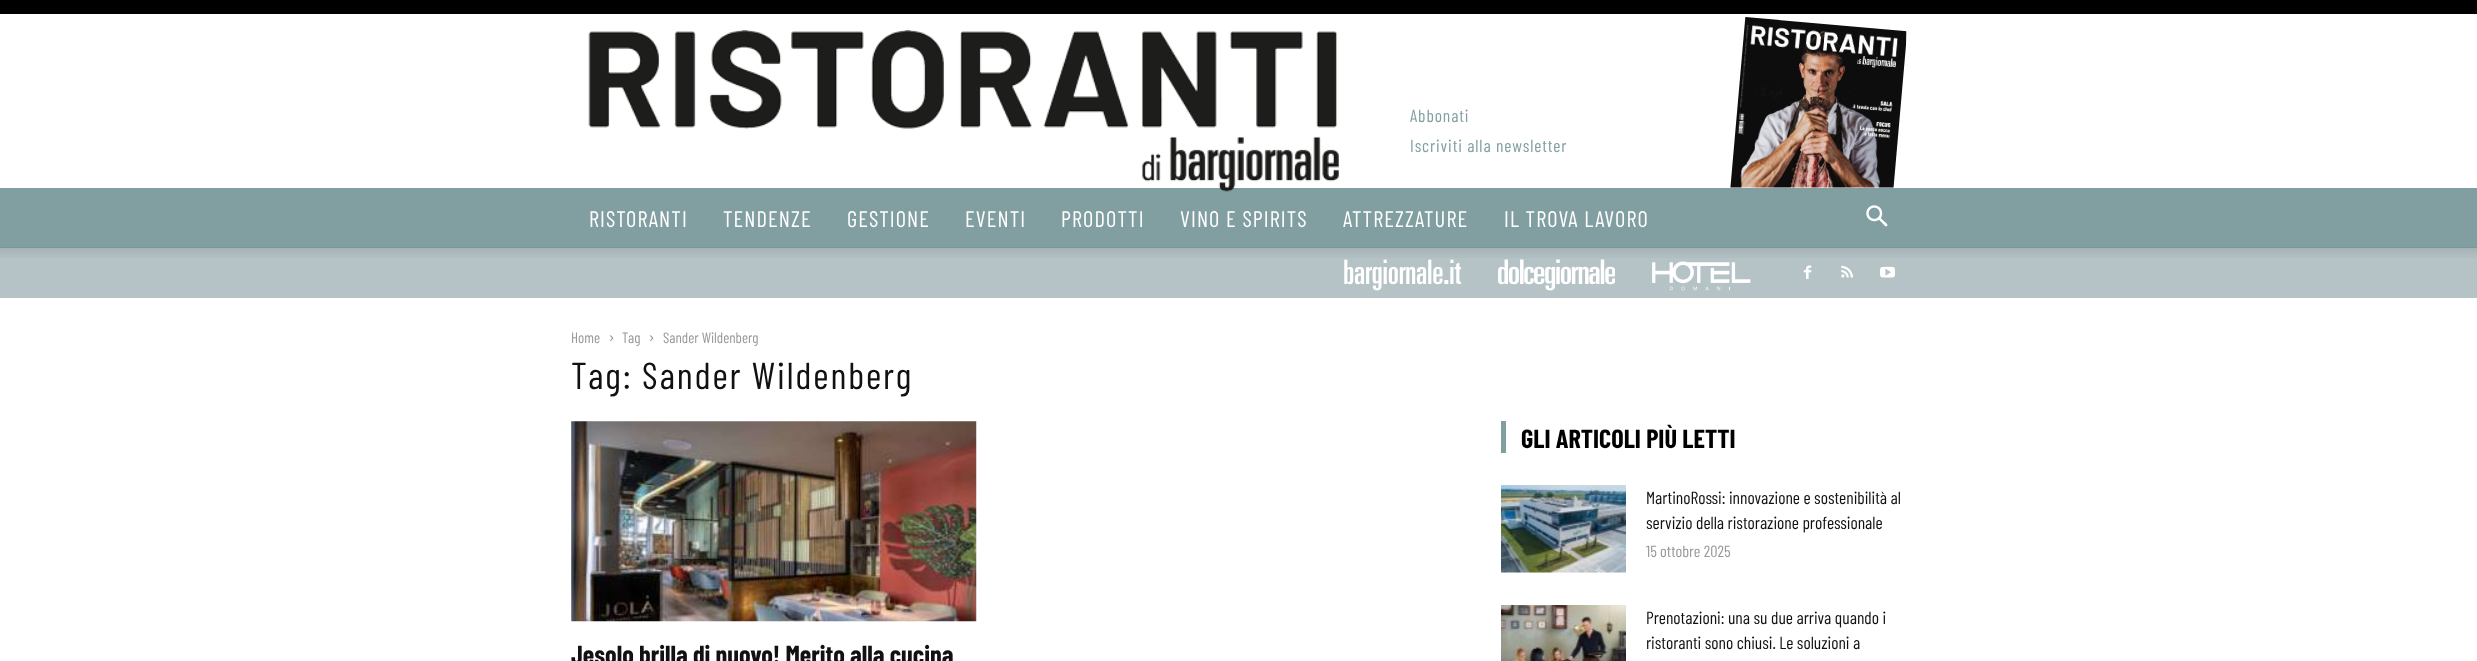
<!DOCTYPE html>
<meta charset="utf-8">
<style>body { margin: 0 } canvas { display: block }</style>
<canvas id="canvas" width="2477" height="661"></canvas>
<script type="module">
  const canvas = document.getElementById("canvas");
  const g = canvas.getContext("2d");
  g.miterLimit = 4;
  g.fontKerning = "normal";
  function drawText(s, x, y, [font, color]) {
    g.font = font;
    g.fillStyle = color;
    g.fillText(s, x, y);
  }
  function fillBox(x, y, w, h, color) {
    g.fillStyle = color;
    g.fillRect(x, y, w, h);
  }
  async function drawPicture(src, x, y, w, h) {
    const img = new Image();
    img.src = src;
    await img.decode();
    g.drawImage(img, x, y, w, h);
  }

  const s1 = ["17.5px Barlow Condensed", "#819EA1"];
  const s2 = ["22.5px Barlow Condensed", "#FFFFFF"];
  const s3 = ["15px Barlow Condensed", "#999999"];
  const s4 = ["37.5px Barlow Condensed", "#111111"];
  const s5 = ["bold 26.25px Barlow Condensed", "#111111"];
  const s6 = ["bold 26.25px Barlow Condensed", "#000000"];
  const s7 = ["17.5px Barlow Condensed", "#111111"];
  const s8 = ["16.25px Barlow Condensed", "#999999"];

  fillBox(0, 0, 2477, 661, "#FFFFFF");
  fillBox(0, 0, 2477, 14, "#000000");
  fillBox(0, 188, 2477, 60, "#819EA1");
  await drawPicture("pic1.png", 588, 30, 751, 162);
  g.letterSpacing = "0.9px";
  drawText("Abbonati", 1410, 122, s1);
  drawText("Iscriviti alla newsletter", 1410, 152, s1);
  await drawPicture("pic2.png", 1730, 17, 177, 171);
  g.letterSpacing = "1.1px";
  drawText("RISTORANTI", 589, 227, s2);
  drawText("TENDENZE", 723, 227, s2);
  drawText("GESTIONE", 847, 227, s2);
  drawText("EVENTI", 965, 227, s2);
  drawText("PRODOTTI", 1061, 227, s2);
  drawText("VINO E SPIRITS", 1180, 227, s2);
  drawText("ATTREZZATURE", 1343, 227, s2);
  drawText("IL TROVA LAVORO", 1504, 227, s2);
  await drawPicture("pic3.png", 1866, 205, 22, 22);
  fillBox(0, 248, 2477, 50, "#B6C3C6");
  await drawPicture("pic4.png", 0, 247, 2477, 11);
  await drawPicture("pic5.png", 1344, 259, 117, 32);
  await drawPicture("pic6.png", 1498, 259, 117, 32);
  await drawPicture("pic7.png", 1652, 261, 99, 30);
  await drawPicture("pic8.png", 1803, 265, 9, 14);
  await drawPicture("pic9.png", 1841, 265, 12, 13);
  await drawPicture("pic10.png", 1880, 266, 15, 12);
  g.letterSpacing = "0px";
  drawText("Home", 571, 343, s3);
  await drawPicture("pic11.png", 610, 335, 4, 6);
  drawText("Tag", 622, 343, s3);
  await drawPicture("pic11.png", 650, 335, 4, 6);
  drawText("Sander Wildenberg", 663, 343, s3);
  g.letterSpacing = "1.9px";
  drawText("Tag: Sander Wildenberg", 571, 389, s4);
  await drawPicture("pic12.png", 571, 421, 406, 201);
  g.letterSpacing = "0px";
  drawText("Jesolo brilla di nuovo! Merito alla cucina", 571, 664, s5);
  fillBox(1501, 421, 5, 32, "#819EA1");
  drawText("GLI ARTICOLI PIÙ LETTI", 1521, 448, s6);
  await drawPicture("pic13.png", 1501, 485, 125, 88);
  drawText("MartinoRossi: innovazione e sostenibilità al", 1646, 504, s7);
  drawText("servizio della ristorazione professionale", 1646, 529, s7);
  drawText("15 ottobre 2025", 1646, 557, s8);
  await drawPicture("pic14.png", 1501, 605, 125, 56);
  drawText("Prenotazioni: una su due arriva quando i", 1646, 624, s7);
  drawText("ristoranti sono chiusi. Le soluzioni a", 1646, 649, s7);
</script>
